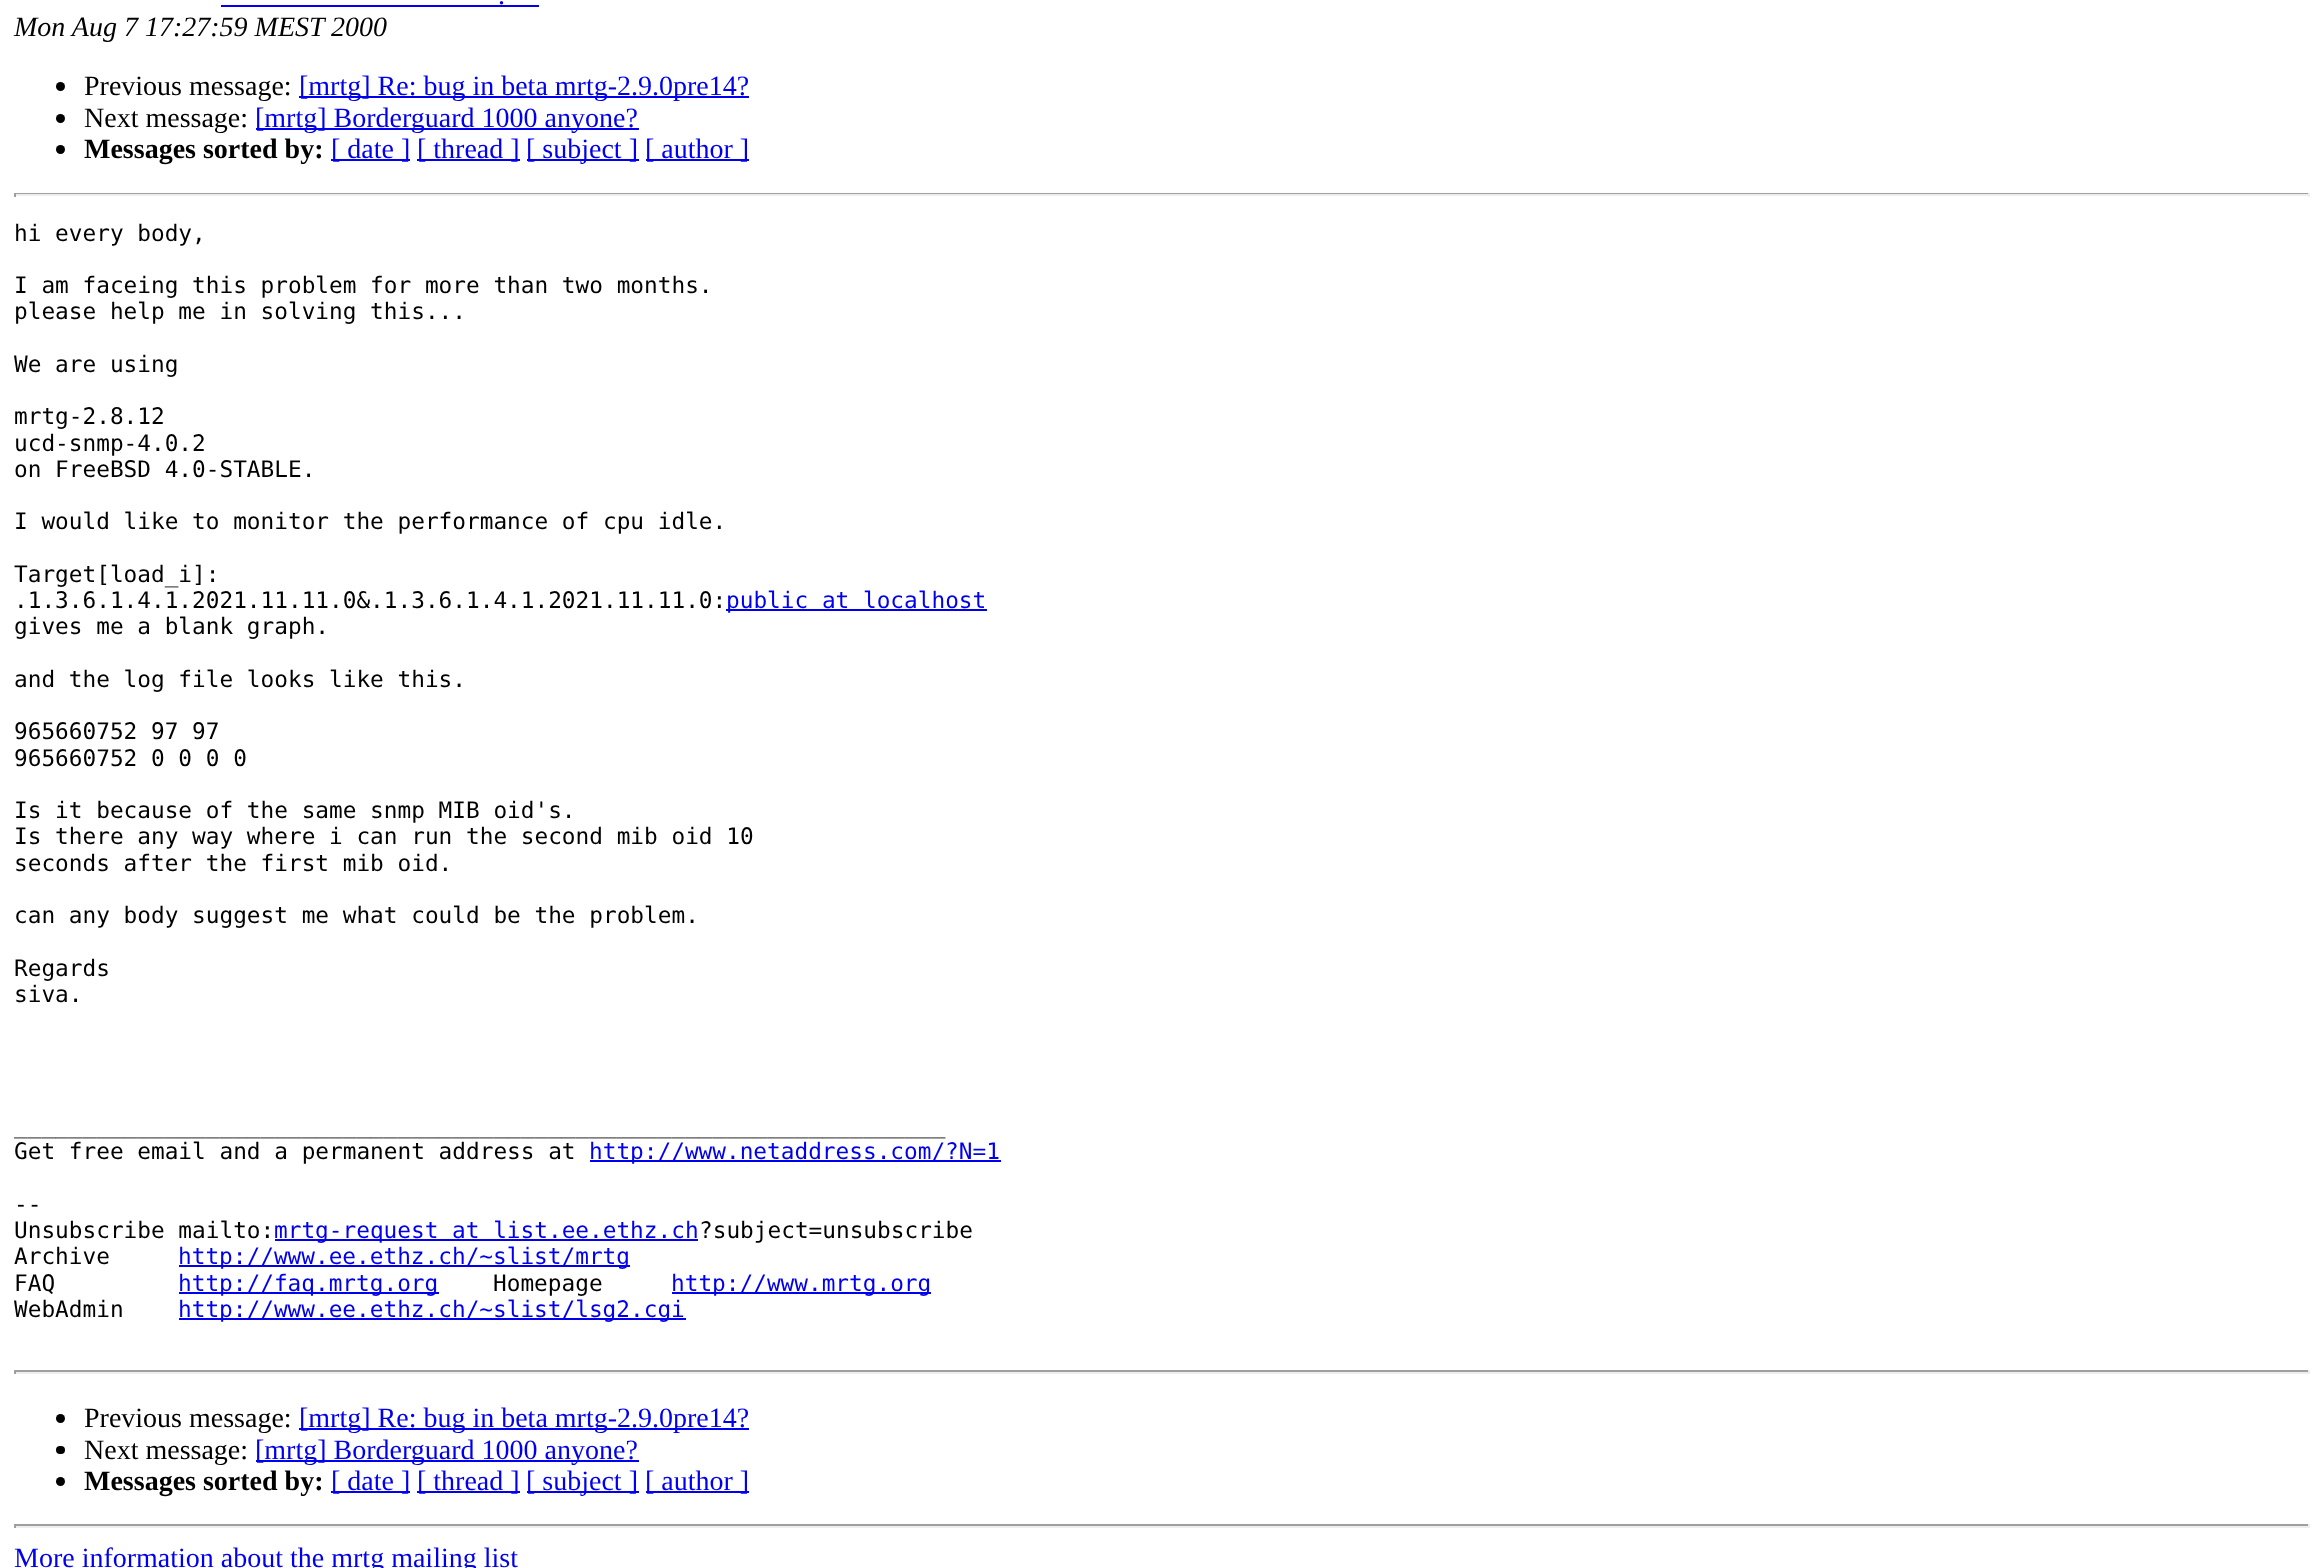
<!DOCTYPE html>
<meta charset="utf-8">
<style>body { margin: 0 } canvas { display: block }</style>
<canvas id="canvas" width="2323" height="1568"></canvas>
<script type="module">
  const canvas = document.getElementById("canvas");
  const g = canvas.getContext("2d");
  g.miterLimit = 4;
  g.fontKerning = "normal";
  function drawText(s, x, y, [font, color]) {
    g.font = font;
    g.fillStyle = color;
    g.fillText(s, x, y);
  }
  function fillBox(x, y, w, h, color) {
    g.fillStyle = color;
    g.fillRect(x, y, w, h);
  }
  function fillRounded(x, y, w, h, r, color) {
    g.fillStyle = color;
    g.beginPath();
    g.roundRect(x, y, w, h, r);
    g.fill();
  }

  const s1 = ["28px Liberation Serif", "#0000EE"];
  const s2 = ["italic 28px Liberation Serif", "#000000"];
  const s3 = ["28px Liberation Serif", "#000000"];
  const s4 = ["bold 28px Liberation Serif", "#000000"];
  const s5 = ["22.75px DejaVu Sans Mono", "#000000"];
  const s6 = ["22.75px DejaVu Sans Mono", "#0000EE"];

  fillBox(0, 0, 2323, 1568, "#FFFFFF");
  drawText(".", 498, 4, s1);
  fillBox(221, 5, 318, 2, "#0000EE");
  drawText("Mon Aug 7 17:27:59 MEST 2000", 14, 36, s2);
  g.beginPath();
  g.arc(60.5, 86.5, 4.5, 0, Math.PI * 2);
  g.fill();
  drawText("Previous message:", 84, 95, s3);
  fillBox(299, 96, 450, 2, "#0000EE");
  drawText("[mrtg] Re: bug in beta mrtg-2.9.0pre14?", 299, 95, s1);
  g.fillStyle = "#000000";
  g.beginPath();
  g.arc(60.5, 118.5, 4.5, 0, Math.PI * 2);
  g.fill();
  drawText("Next message:", 84, 127, s3);
  fillBox(256, 128, 383, 2, "#0000EE");
  drawText("[mrtg] Borderguard 1000 anyone?", 255, 127, s1);
  g.fillStyle = "#000000";
  g.beginPath();
  g.arc(60.5, 149.5, 4.5, 0, Math.PI * 2);
  g.fill();
  drawText("Messages sorted by:", 84, 158, s4);
  fillBox(331, 159, 79, 2, "#0000EE");
  drawText("[ date ]", 331, 158, s1);
  fillBox(417, 159, 103, 2, "#0000EE");
  drawText("[ thread ]", 417, 158, s1);
  fillBox(527, 159, 112, 2, "#0000EE");
  drawText("[ subject ]", 526, 158, s1);
  fillBox(646, 159, 103, 2, "#0000EE");
  drawText("[ author ]", 645, 158, s1);
  fillBox(14, 193, 2296, 1, "#9F9F9F");
  fillBox(2308, 193, 2, 4, "#EEEEEE");
  fillBox(14, 194, 2296, 2, "#EEEEEE");
  fillBox(14, 193, 2, 4, "#9F9F9F");
  drawText("hi every body,", 14, 241, s5);
  drawText("I am faceing this problem for more than two months.", 14, 293, s5);
  drawText("please help me in solving this...", 14, 319, s5);
  drawText("We are using", 14, 372, s5);
  drawText("mrtg-2.8.12", 14, 424, s5);
  drawText("ucd-snmp-4.0.2", 14, 451, s5);
  drawText("on FreeBSD 4.0-STABLE.", 14, 477, s5);
  drawText("I would like to monitor the performance of cpu idle.", 14, 529, s5);
  drawText("Target[load_i]:", 14, 582, s5);
  drawText(".1.3.6.1.4.1.2021.11.11.0&.1.3.6.1.4.1.2021.11.11.0:", 14, 608, s5);
  fillBox(726, 609, 261, 2, "#0000EE");
  drawText("public at localhost", 726, 608, s6);
  drawText("gives me a blank graph.", 14, 634, s5);
  drawText("and the log file looks like this.", 14, 687, s5);
  drawText("965660752 97 97", 14, 739, s5);
  drawText("965660752 0 0 0 0", 14, 766, s5);
  drawText("Is it because of the same snmp MIB oid's.", 14, 818, s5);
  drawText("Is there any way where i can run the second mib oid 10", 14, 844, s5);
  drawText("seconds after the first mib oid.", 14, 871, s5);
  drawText("can any body suggest me what could be the problem.", 14, 923, s5);
  drawText("Regards", 14, 976, s5);
  drawText("siva.", 14, 1002, s5);
  drawText("____________________________________________________________________", 14, 1133, s5);
  drawText("Get free email and a permanent address at", 14, 1159, s5);
  fillBox(590, 1160, 411, 2, "#0000EE");
  drawText("http://www.netaddress.com/?N=1", 589, 1159, s6);
  drawText("--", 14, 1212, s5);
  drawText("Unsubscribe mailto:", 14, 1238, s5);
  fillBox(275, 1239, 423, 2, "#0000EE");
  drawText("mrtg-request at list.ee.ethz.ch", 274, 1238, s6);
  drawText("?subject=unsubscribe", 699, 1238, s5);
  drawText("Archive", 14, 1264, s5);
  fillBox(179, 1265, 451, 2, "#0000EE");
  drawText("http://www.ee.ethz.ch/~slist/mrtg", 178, 1264, s6);
  drawText("FAQ", 14, 1291, s5);
  fillBox(179, 1292, 260, 2, "#0000EE");
  drawText("http://faq.mrtg.org", 178, 1291, s6);
  drawText("Homepage", 493, 1291, s5);
  fillBox(672, 1292, 259, 2, "#0000EE");
  drawText("http://www.mrtg.org", 671, 1291, s6);
  drawText("WebAdmin", 14, 1317, s5);
  fillBox(179, 1318, 507, 2, "#0000EE");
  drawText("http://www.ee.ethz.ch/~slist/lsg2.cgi", 178, 1317, s6);
  fillBox(14, 1370, 2296, 2, "#9F9F9F");
  fillBox(2308, 1370, 2, 4, "#EEEEEE");
  fillBox(14, 1372, 2296, 2, "#EEEEEE");
  fillBox(14, 1370, 2, 4, "#9F9F9F");
  g.fillStyle = "#000000";
  g.beginPath();
  g.arc(60.5, 1418.5, 4.5, 0, Math.PI * 2);
  g.fill();
  drawText("Previous message:", 84, 1427, s3);
  fillBox(299, 1428, 450, 2, "#0000EE");
  drawText("[mrtg] Re: bug in beta mrtg-2.9.0pre14?", 299, 1427, s1);
  fillRounded(56, 1446, 9, 8, 4, "#000000");
  drawText("Next message:", 84, 1459, s3);
  fillBox(256, 1460, 383, 2, "#0000EE");
  drawText("[mrtg] Borderguard 1000 anyone?", 255, 1459, s1);
  g.fillStyle = "#000000";
  g.beginPath();
  g.arc(60.5, 1481.5, 4.5, 0, Math.PI * 2);
  g.fill();
  drawText("Messages sorted by:", 84, 1490, s4);
  fillBox(331, 1491, 79, 2, "#0000EE");
  drawText("[ date ]", 331, 1490, s1);
  fillBox(417, 1491, 103, 2, "#0000EE");
  drawText("[ thread ]", 417, 1490, s1);
  fillBox(527, 1491, 112, 2, "#0000EE");
  drawText("[ subject ]", 526, 1490, s1);
  fillBox(646, 1491, 103, 2, "#0000EE");
  drawText("[ author ]", 645, 1490, s1);
  fillBox(14, 1524, 2296, 2, "#9F9F9F");
  fillBox(2308, 1524, 2, 4, "#EEEEEE");
  fillBox(14, 1526, 2296, 2, "#EEEEEE");
  fillBox(14, 1524, 2, 4, "#9F9F9F");
  drawText("More information about the mrtg mailing list", 14, 1567, s1);
</script>
